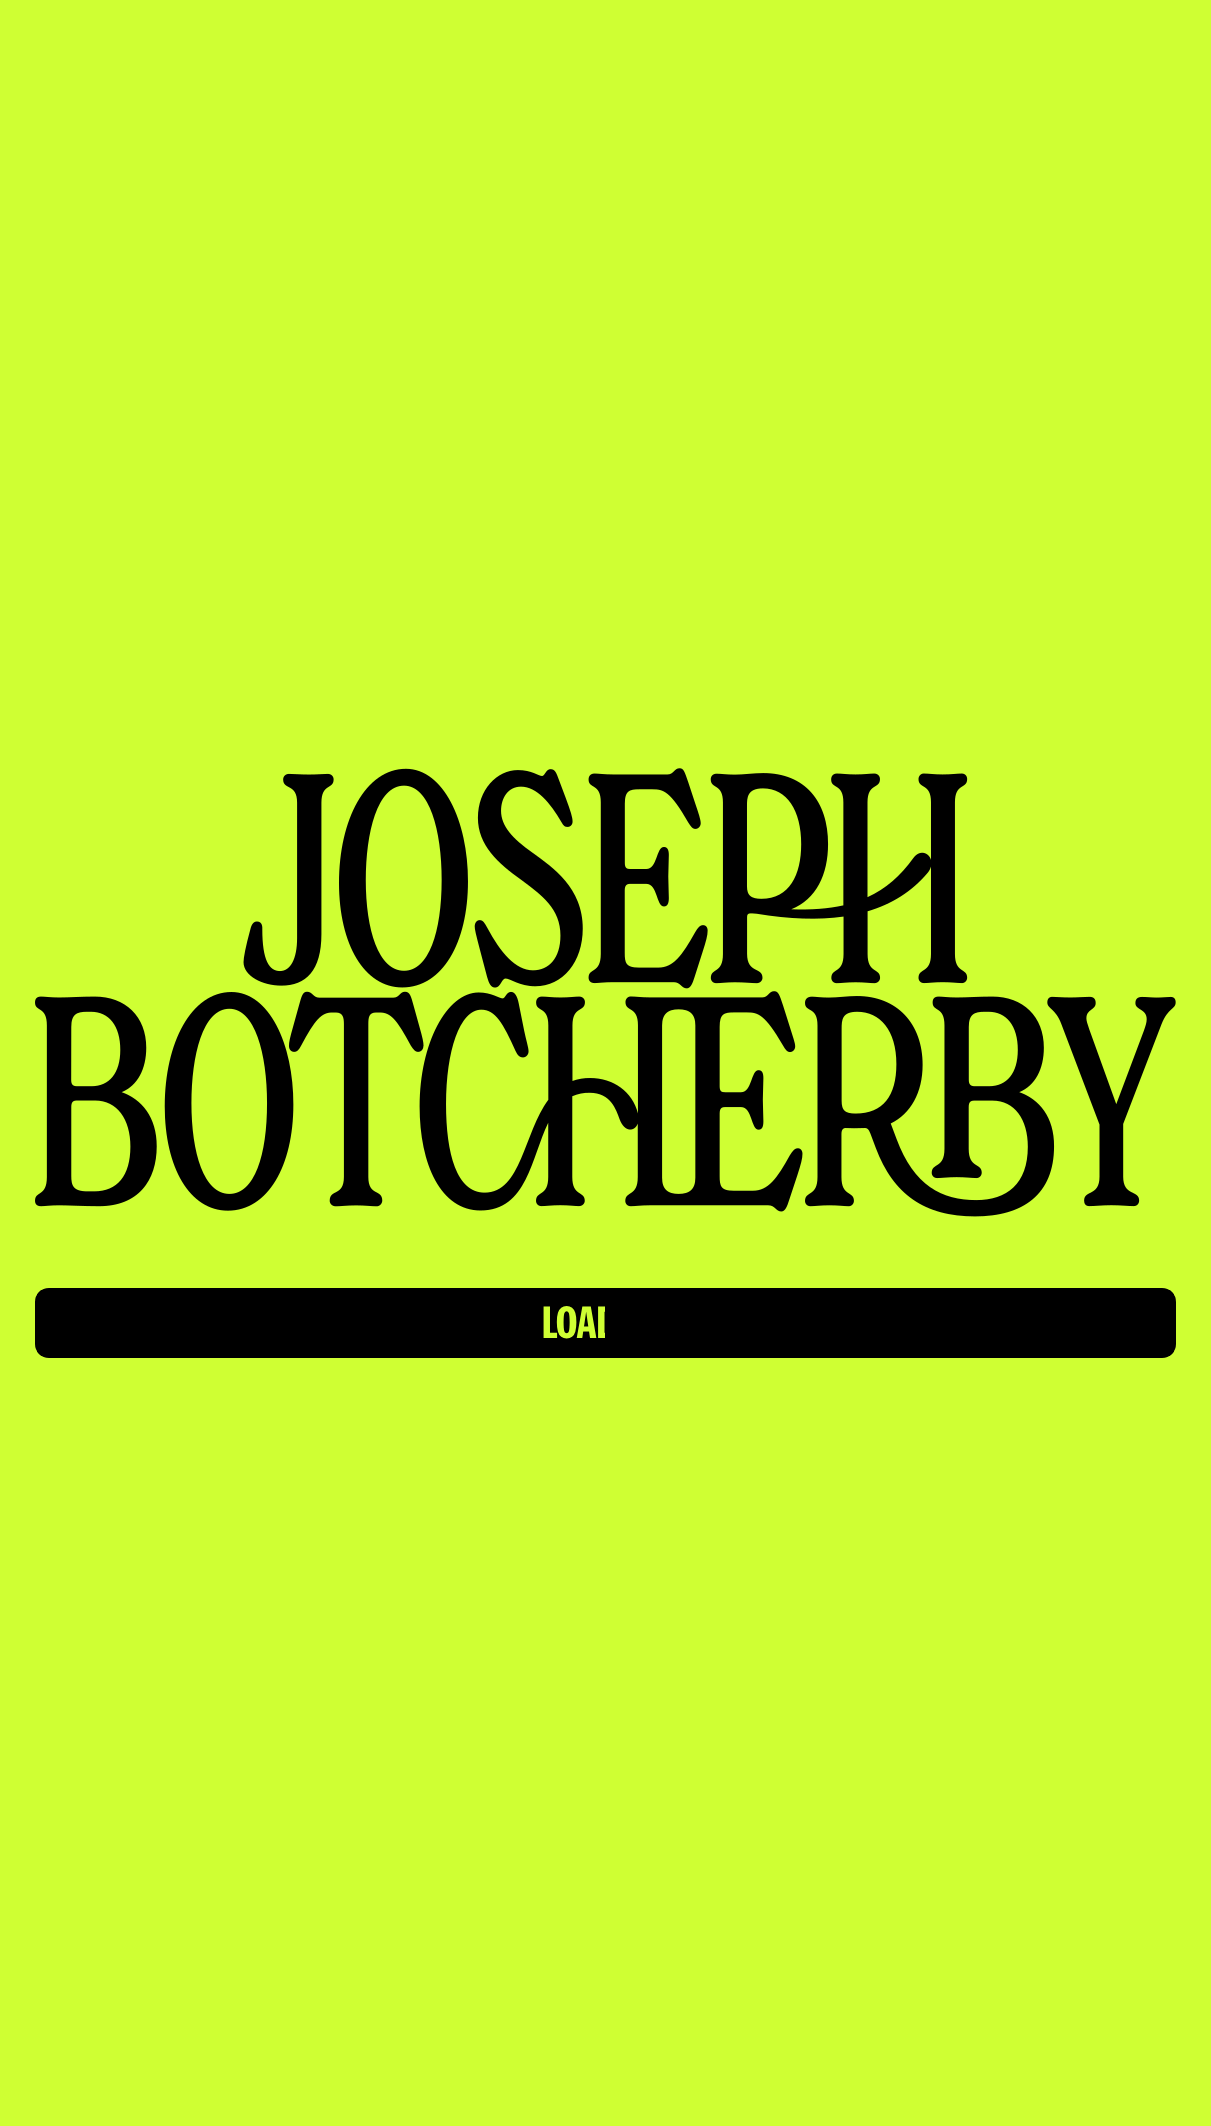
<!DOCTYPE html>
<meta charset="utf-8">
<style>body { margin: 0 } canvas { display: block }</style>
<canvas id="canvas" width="1211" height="2126"></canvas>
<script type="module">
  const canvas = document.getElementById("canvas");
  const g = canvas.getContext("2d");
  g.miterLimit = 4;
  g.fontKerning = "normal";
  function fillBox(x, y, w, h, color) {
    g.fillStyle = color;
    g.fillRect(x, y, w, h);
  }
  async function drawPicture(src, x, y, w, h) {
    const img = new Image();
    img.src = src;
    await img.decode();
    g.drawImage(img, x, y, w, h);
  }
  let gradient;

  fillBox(0, 0, 1211, 2126, "#CFFF33");
  await drawPicture("pic1.png", 35, 768, 1141, 449);
  g.save();
  g.beginPath();
  g.roundRect(35, 1288, 1141, 70, 14);
  g.clip();
  fillBox(37, 1290, 1137, 66, "#000000");
  g.restore();
  g.beginPath();
  g.roundRect(36, 1289, 1139, 68, 13);
  g.strokeStyle = "#000000";
  g.lineWidth = 2;
  g.stroke();
  g.font = "800 42px 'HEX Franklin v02'";
  gradient = g.createLinearGradient(37, 1322, 1174, 1322);
  gradient.addColorStop(0, "#CFFF33");
  gradient.addColorStop(0.5, "#CFFF33");
  gradient.addColorStop(0.5, "#000000");
  gradient.addColorStop(1, "#000000");
  g.fillStyle = gradient;
  g.fillText("LOAD", 542, 1338);
</script>
